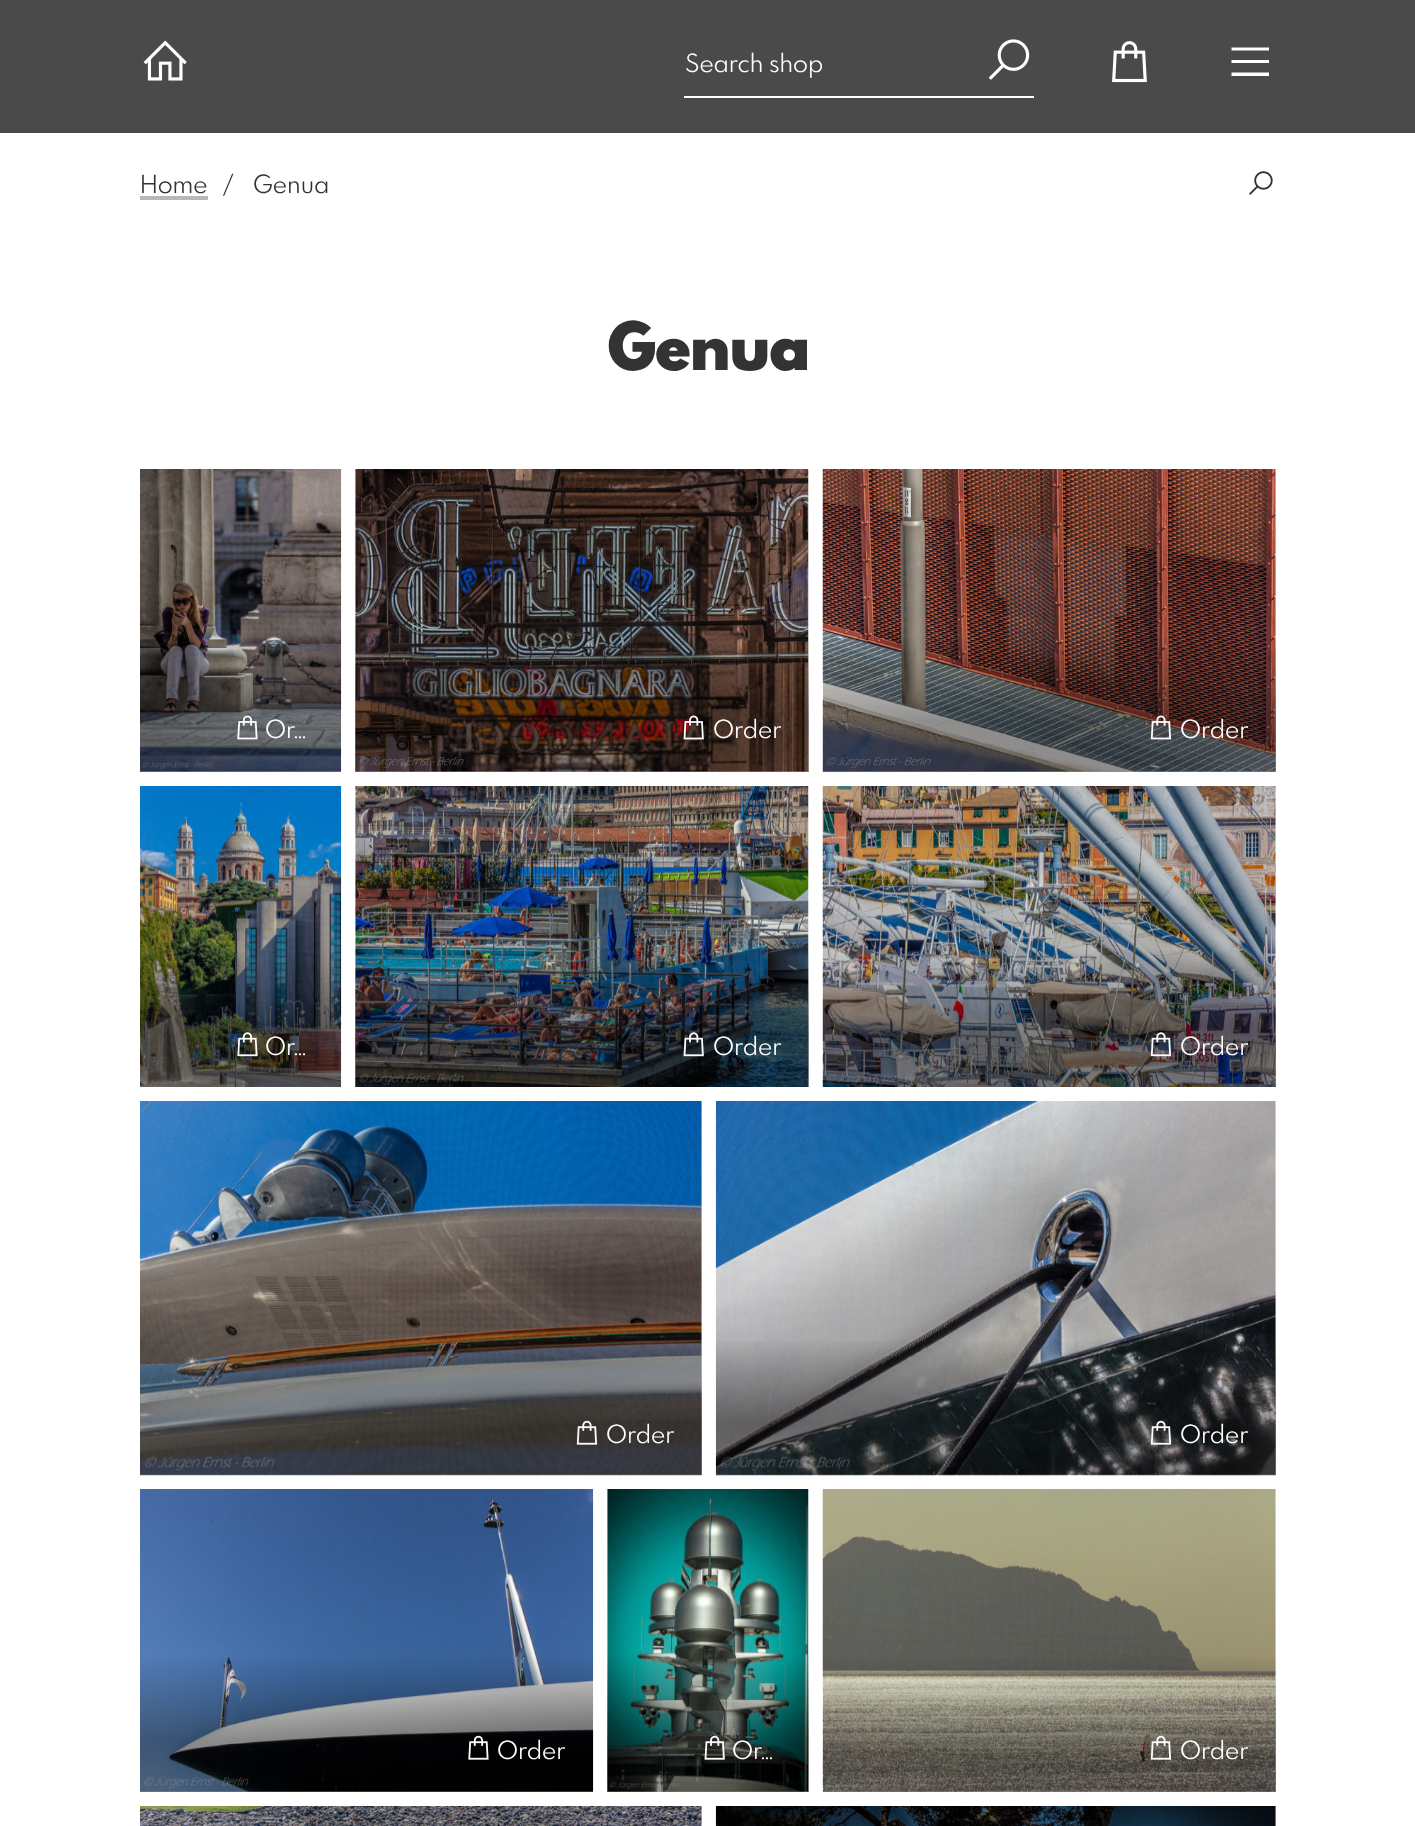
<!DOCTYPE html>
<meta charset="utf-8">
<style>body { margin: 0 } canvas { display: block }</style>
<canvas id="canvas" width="1415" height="1826"></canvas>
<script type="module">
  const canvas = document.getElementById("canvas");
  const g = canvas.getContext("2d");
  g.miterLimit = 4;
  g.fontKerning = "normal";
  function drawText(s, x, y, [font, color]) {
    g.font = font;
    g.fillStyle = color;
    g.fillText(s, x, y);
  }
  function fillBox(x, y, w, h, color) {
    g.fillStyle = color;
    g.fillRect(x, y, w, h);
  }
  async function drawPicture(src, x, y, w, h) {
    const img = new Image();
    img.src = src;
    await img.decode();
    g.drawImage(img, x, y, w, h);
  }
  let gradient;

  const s1 = ["24.5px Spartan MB", "#FFFFFF"];
  const s2 = ["24.5px Spartan MB", "#333333"];
  const s3 = ["900 65px Spartan MB", "#333333"];

  fillBox(0, 0, 1415, 1826, "#FFFFFF");
  fillBox(0, 0, 1415, 133, "#4A4A4A");
  await drawPicture("pic1.png", 143, 40, 44, 41);
  fillBox(684, 96, 350, 2, "#FFFFFF");
  drawText("Search shop", 685, 72, s1);
  await drawPicture("pic2.png", 988, 39, 42, 41);
  await drawPicture("pic3.png", 1112, 41, 35, 42);
  g.beginPath();
  g.moveTo(1231.5, 47.5);
  g.lineTo(1231.5, 50.5);
  g.lineTo(1269, 50.5);
  g.lineTo(1269, 47.5);
  g.closePath();
  g.moveTo(1231.5, 60);
  g.lineTo(1231.5, 63);
  g.lineTo(1269, 63);
  g.lineTo(1269, 60);
  g.closePath();
  g.moveTo(1231.5, 72.5);
  g.lineTo(1231.5, 76);
  g.lineTo(1269, 76);
  g.lineTo(1269, 72.5);
  g.closePath();
  g.fill();
  drawText("Home", 140, 193, s2);
  fillBox(140, 196, 68, 4, "#B8B8B8");
  drawText("/", 223, 193, s2);
  drawText("Genua", 253, 193, s2);
  await drawPicture("pic4.png", 1249, 171, 24, 24);
  drawText("Genua", 608, 370, s3);
  await drawPicture("pic5.png", 140, 469, 202, 303);
  gradient = g.createLinearGradient(241, 469, 241, 772);
  gradient.addColorStop(0, "rgba(0, 0, 0, 0)");
  gradient.addColorStop(0.54, "rgba(0, 0, 0, 0)");
  gradient.addColorStop(0.83, "rgba(0, 0, 0, 0.4)");
  g.fillStyle = gradient;
  g.fillRect(140, 637, 201, 135);
  await drawPicture("pic6.png", 237, 715, 21, 25);
  drawText("Or…", 265, 738, s1);
  await drawPicture("pic7.png", 355, 469, 454, 303);
  gradient = g.createLinearGradient(582, 469, 582, 772);
  gradient.addColorStop(0, "rgba(0, 0, 0, 0)");
  gradient.addColorStop(0.54, "rgba(0, 0, 0, 0)");
  gradient.addColorStop(0.83, "rgba(0, 0, 0, 0.4)");
  g.fillStyle = gradient;
  g.fillRect(355, 637, 454, 135);
  await drawPicture("pic8.png", 683, 715, 21, 25);
  drawText("Order", 713, 738, s1);
  await drawPicture("pic9.png", 822, 469, 454, 303);
  gradient = g.createLinearGradient(1049, 469, 1049, 772);
  gradient.addColorStop(0, "rgba(0, 0, 0, 0)");
  gradient.addColorStop(0.54, "rgba(0, 0, 0, 0)");
  gradient.addColorStop(0.83, "rgba(0, 0, 0, 0.4)");
  g.fillStyle = gradient;
  g.fillRect(823, 637, 453, 135);
  await drawPicture("pic10.png", 1150, 715, 22, 25);
  drawText("Order", 1180, 738, s1);
  await drawPicture("pic11.png", 140, 786, 202, 301);
  await drawPicture("pic12.png", 237, 1032, 21, 25);
  drawText("Or…", 265, 1055, s1);
  await drawPicture("pic13.png", 355, 786, 454, 301);
  gradient = g.createLinearGradient(582, 786, 582, 1087);
  gradient.addColorStop(0, "rgba(0, 0, 0, 0)");
  gradient.addColorStop(0.53, "rgba(0, 0, 0, 0)");
  gradient.addColorStop(0.83, "rgba(0, 0, 0, 0.4)");
  g.fillStyle = gradient;
  g.fillRect(355, 950, 454, 137);
  await drawPicture("pic14.png", 683, 1032, 21, 25);
  drawText("Order", 713, 1055, s1);
  await drawPicture("pic15.png", 822, 786, 454, 301);
  gradient = g.createLinearGradient(1049, 786, 1049, 1087);
  gradient.addColorStop(0, "rgba(0, 0, 0, 0)");
  gradient.addColorStop(0.53, "rgba(0, 0, 0, 0)");
  gradient.addColorStop(0.83, "rgba(0, 0, 0, 0.4)");
  g.fillStyle = gradient;
  g.fillRect(823, 950, 453, 137);
  await drawPicture("pic16.png", 1150, 1032, 22, 25);
  drawText("Order", 1180, 1055, s1);
  await drawPicture("pic17.png", 140, 1101, 562, 375);
  gradient = g.createLinearGradient(421, 1101, 421, 1475);
  gradient.addColorStop(0, "rgba(0, 0, 0, 0)");
  gradient.addColorStop(0.63, "rgba(0, 0, 0, 0)");
  gradient.addColorStop(0.86, "rgba(0, 0, 0, 0.4)");
  g.fillStyle = gradient;
  g.fillRect(140, 1341, 562, 134);
  await drawPicture("pic18.png", 576, 1420, 22, 25);
  drawText("Order", 606, 1443, s1);
  await drawPicture("pic19.png", 715, 1101, 561, 375);
  gradient = g.createLinearGradient(996, 1101, 996, 1475);
  gradient.addColorStop(0, "rgba(0, 0, 0, 0)");
  gradient.addColorStop(0.63, "rgba(0, 0, 0, 0)");
  gradient.addColorStop(0.86, "rgba(0, 0, 0, 0.4)");
  g.fillStyle = gradient;
  g.fillRect(716, 1341, 560, 134);
  await drawPicture("pic20.png", 1150, 1420, 22, 25);
  drawText("Order", 1180, 1443, s1);
  await drawPicture("pic21.png", 140, 1489, 454, 303);
  gradient = g.createLinearGradient(367, 1489, 367, 1792);
  gradient.addColorStop(0, "rgba(0, 0, 0, 0)");
  gradient.addColorStop(0.54, "rgba(0, 0, 0, 0)");
  gradient.addColorStop(0.83, "rgba(0, 0, 0, 0.4)");
  g.fillStyle = gradient;
  g.fillRect(140, 1657, 453, 135);
  await drawPicture("pic22.png", 468, 1735, 21, 25);
  drawText("Order", 497, 1759, s1);
  await drawPicture("pic23.png", 607, 1489, 202, 303);
  gradient = g.createLinearGradient(708, 1489, 708, 1792);
  gradient.addColorStop(0, "rgba(0, 0, 0, 0)");
  gradient.addColorStop(0.54, "rgba(0, 0, 0, 0)");
  gradient.addColorStop(0.83, "rgba(0, 0, 0, 0.4)");
  g.fillStyle = gradient;
  g.fillRect(607, 1657, 202, 135);
  await drawPicture("pic24.png", 704, 1735, 21, 25);
  drawText("Or…", 732, 1759, s1);
  await drawPicture("pic25.png", 822, 1489, 454, 303);
  gradient = g.createLinearGradient(1049, 1489, 1049, 1792);
  gradient.addColorStop(0, "rgba(0, 0, 0, 0)");
  gradient.addColorStop(0.54, "rgba(0, 0, 0, 0)");
  gradient.addColorStop(0.83, "rgba(0, 0, 0, 0.4)");
  g.fillStyle = gradient;
  g.fillRect(823, 1657, 453, 135);
  await drawPicture("pic26.png", 1150, 1735, 22, 25);
  drawText("Order", 1180, 1759, s1);
  await drawPicture("pic27.png", 140, 1806, 562, 20);
  await drawPicture("pic28.png", 715, 1806, 561, 20);
</script>
